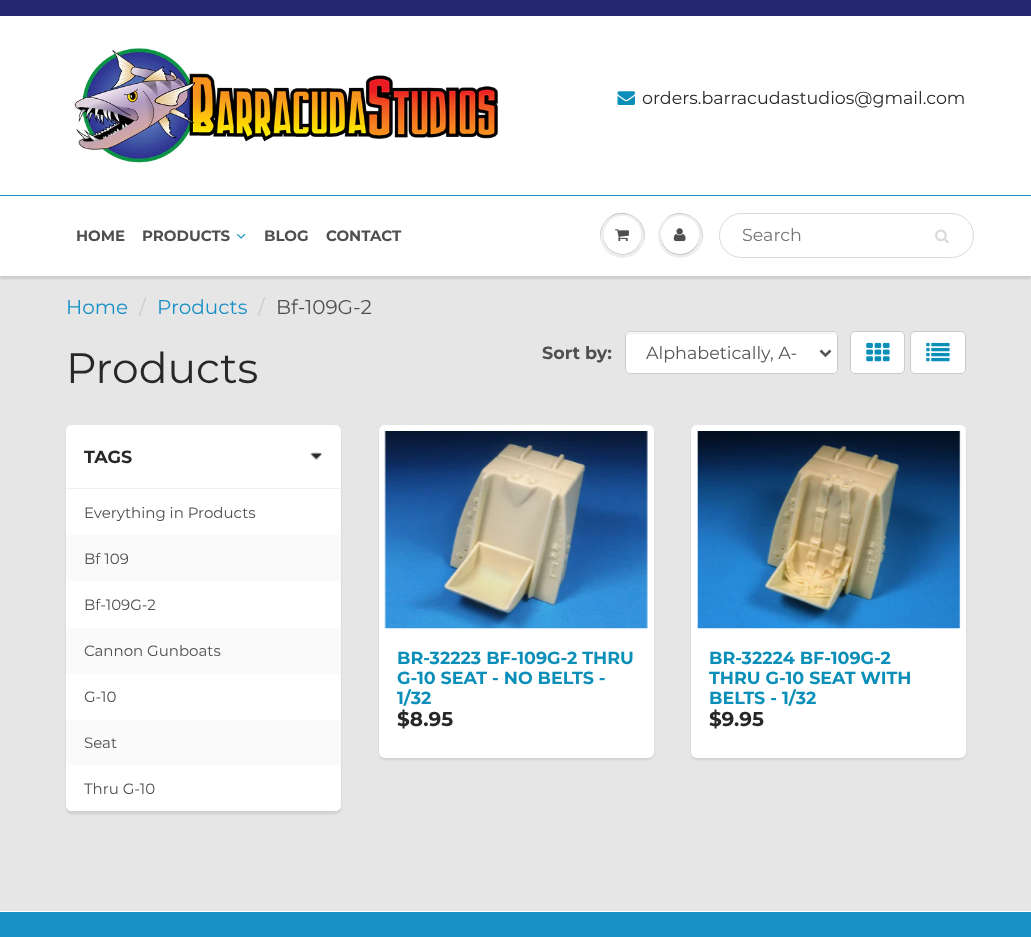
<!DOCTYPE html>
<meta charset="utf-8">
<style>body { margin: 0 } canvas { display: block }</style>
<canvas id="canvas" width="1031" height="937"></canvas>
<script type="module">
  const canvas = document.getElementById("canvas");
  const g = canvas.getContext("2d");
  g.miterLimit = 4;
  g.fontKerning = "normal";
  function drawText(s, x, y, [font, color]) {
    g.font = font;
    g.fillStyle = color;
    g.fillText(s, x, y);
  }
  function fillBox(x, y, w, h, color) {
    g.fillStyle = color;
    g.fillRect(x, y, w, h);
  }
  function fillRounded(x, y, w, h, r, color) {
    g.fillStyle = color;
    g.beginPath();
    g.roundRect(x, y, w, h, r);
    g.fill();
  }
  async function drawPicture(src, x, y, w, h) {
    const img = new Image();
    img.src = src;
    await img.decode();
    g.drawImage(img, x, y, w, h);
  }

  const s1 = ["17.5px Montserrat", "#282827"];
  const s2 = ["bold 15px Montserrat", "#4F4F51"];
  const s3 = ["17.5px Montserrat", "#757575"];
  const s4 = ["20px Montserrat", "#1990C6"];
  const s5 = ["20px Montserrat", "#CCCCCC"];
  const s6 = ["20px Montserrat", "#4F4F51"];
  const s7 = ["bold 17.5px Montserrat", "#282827"];
  const s8 = ["15px Montserrat", "#4F4F51"];
  const s9 = ["bold 17.5px Montserrat", "#4F4F51"];
  const s10 = ["17.5px Montserrat", "#555555"];
  const s11 = ["bold 17.5px Montserrat", "#0B8FB8"];
  const s12 = ["bold 20px Montserrat", "#282827"];
  const s13 = ["42.5px Montserrat", "#282827"];

  fillBox(0, 0, 1031, 937, "#FFFFFF");
  fillBox(0, 0, 1031, 16, "#24266F");
  await drawPicture("pic1.png", 74, 48, 424, 115);
  await drawPicture("pic2.png", 617, 91, 18, 14);
  drawText("orders.barracudastudios@gmail.com", 642, 104, s1);
  fillBox(0, 276, 1031, 635, "#E6E6E6");
  g.save();
  g.beginPath();
  g.rect(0, 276, 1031, 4);
  g.clip();
  g.fillStyle = "rgba(11, 25, 28, 0.12)";
  g.filter = "blur(1px)";
  g.beginPath();
  g.rect(0, 198, 1031, 81);
  g.fill();
  g.filter = "none";
  g.restore();
  fillBox(0, 195, 1031, 1, "#1990C6");
  drawText("HOME", 76, 241, s2);
  drawText("PRODUCTS", 142, 241, s2);
  await drawPicture("pic3.png", 236, 233, 10, 6);
  drawText("BLOG", 264, 241, s2);
  drawText("CONTACT", 326, 241, s2);
  g.fillStyle = "#EDEFEF";
  g.beginPath();
  g.arc(622.5, 235.5, 22.5, 0, Math.PI * 2);
  g.fill();
  g.fillStyle = "#C9CBCB";
  g.beginPath();
  g.moveTo(622, 214);
  g.bezierCurveTo(640, 214, 647, 231, 643, 244);
  g.bezierCurveTo(653, 220, 619, 200, 604, 223);
  g.bezierCurveTo(600, 228, 599, 235, 601, 241);
  g.bezierCurveTo(599, 228, 606, 214, 622, 214);
  g.closePath();
  g.fill();
  g.beginPath();
  g.moveTo(604, 239);
  g.bezierCurveTo(607, 260, 638, 260, 641, 239);
  g.bezierCurveTo(636.5, 258.5, 608.5, 258.5, 604, 239);
  g.closePath();
  g.fill();
  fillRounded(604, 216, 37, 38, 18.5, "#FFFFFF");
  g.beginPath();
  g.moveTo(622, 218);
  g.bezierCurveTo(636, 218, 642, 229.5, 640.5, 240);
  g.bezierCurveTo(641.5, 236, 641, 231, 639.5, 227.5);
  g.bezierCurveTo(631.5, 208.5, 603.5, 214.5, 604, 236);
  g.bezierCurveTo(604, 227, 610, 218, 622, 218);
  g.closePath();
  g.fill();
  await drawPicture("pic4.png", 615, 229, 14, 13);
  g.fillStyle = "#EDEFEF";
  g.beginPath();
  g.arc(680.5, 235.5, 22.5, 0, Math.PI * 2);
  g.fill();
  g.fillStyle = "#C9CBCB";
  g.beginPath();
  g.moveTo(680, 214);
  g.bezierCurveTo(698, 214, 705, 231, 701, 244);
  g.bezierCurveTo(710, 222, 682, 203, 665, 219);
  g.bezierCurveTo(669, 216, 674, 214, 680, 214);
  g.closePath();
  g.fill();
  g.beginPath();
  g.moveTo(661.5, 232.5);
  g.bezierCurveTo(657, 253, 684.5, 263.5, 696, 247);
  g.bezierCurveTo(698.5, 242.5, 699.5, 237.5, 698.5, 232.5);
  g.bezierCurveTo(701, 252, 675.5, 261.5, 664.5, 245.5);
  g.bezierCurveTo(662, 242, 661, 237, 661.5, 232.5);
  g.closePath();
  g.fill();
  g.fillStyle = "#FFFFFF";
  g.beginPath();
  g.arc(680, 235, 19, 0, Math.PI * 2);
  g.fill();
  g.beginPath();
  g.moveTo(680, 218);
  g.bezierCurveTo(693.5, 218, 699.5, 229, 698.5, 239);
  g.bezierCurveTo(699.5, 234, 698.5, 228.5, 696, 224.5);
  g.bezierCurveTo(684, 207, 657.5, 219, 661.5, 239);
  g.bezierCurveTo(660.5, 229, 666.5, 218, 680, 218);
  g.closePath();
  g.fill();
  await drawPicture("pic5.png", 673, 228, 13, 14);
  g.beginPath();
  g.roundRect(719.5, 213.5, 254, 44, 22);
  g.strokeStyle = "#D7DBDB";
  g.stroke();
  drawText("Search", 742, 241, s3);
  await drawPicture("pic6.png", 935, 229, 14, 15);
  drawText("Home", 66, 314, s4);
  drawText("/", 139, 314, s5);
  drawText("Products", 157, 314, s4);
  drawText("/", 258, 314, s5);
  drawText("Bf-109G-2", 276, 314, s6);
  g.fillStyle = "rgba(11, 25, 28, 0.1)";
  g.filter = "blur(1px)";
  g.beginPath();
  g.roundRect(66, 428, 275, 386, 6);
  g.fill();
  g.filter = "none";
  fillRounded(66, 425, 275, 386, 6, "#FFFFFF");
  fillBox(66, 488, 275, 1, "#EFEFEF");
  await drawPicture("pic7.png", 310, 452, 13, 8);
  drawText("TAGS", 84, 463, s7);
  drawText("Everything in Products", 84, 518, s8);
  fillBox(66, 535, 275, 46, "#FAFAFA");
  drawText("Bf 109", 84, 564, s8);
  drawText("Bf-109G-2", 84, 610, s8);
  fillBox(66, 628, 275, 46, "#FAFAFA");
  drawText("Cannon Gunboats", 84, 656, s8);
  drawText("G-10", 84, 702, s8);
  fillBox(66, 720, 275, 45, "#FAFAFA");
  drawText("Seat", 84, 748, s8);
  g.fillStyle = "#FFFFFF";
  g.beginPath();
  g.roundRect(66, 765, 275, 46, [0, 0, 6, 6]);
  g.fill();
  drawText("Thru G-10", 84, 794, s8);
  drawText("Sort by:", 542, 359, s9);
  fillRounded(625, 331, 213, 43, 5, "#FFFFFF");
  g.fillStyle = "#ECECEC";
  g.beginPath();
  g.moveTo(630, 334);
  g.lineTo(832, 334);
  g.bezierCurveTo(835, 334, 836, 335, 836, 338);
  g.lineTo(836, 337);
  g.bezierCurveTo(836, 335, 834, 333, 832, 333);
  g.lineTo(630, 333);
  g.bezierCurveTo(628, 333, 626, 335, 626, 337);
  g.lineTo(626, 338);
  g.bezierCurveTo(626, 335, 628, 334, 630, 334);
  g.closePath();
  g.fill();
  g.beginPath();
  g.roundRect(625.5, 331.5, 212, 42, 4.5);
  g.strokeStyle = "#CCCCCC";
  g.stroke();
  g.beginPath();
  g.moveTo(820.5, 350.5);
  g.lineTo(825.5, 355.5);
  g.lineTo(830.5, 350.5);
  g.strokeStyle = "#555555";
  g.lineWidth = 2.5;
  g.stroke();
  drawText("Alphabetically, A-", 646, 359, s10);
  g.fillStyle = "#FFFFFF";
  g.beginPath();
  g.roundRect(850.5, 331.5, 54, 42, 4.5);
  g.fill();
  g.strokeStyle = "#CCCCCC";
  g.lineWidth = 1;
  g.stroke();
  await drawPicture("pic8.png", 866, 342, 24, 20);
  g.beginPath();
  g.roundRect(910.5, 331.5, 55, 42, 4.5);
  g.fill();
  g.stroke();
  await drawPicture("pic9.png", 926, 342, 24, 20);
  g.fillStyle = "rgba(11, 25, 28, 0.1)";
  g.filter = "blur(1px)";
  g.beginPath();
  g.roundRect(379, 428, 275, 332, 6);
  g.fill();
  g.filter = "none";
  g.fillStyle = "#FFFFFF";
  g.beginPath();
  g.roundRect(382, 428, 269, 327, 3);
  g.fill();
  g.strokeStyle = "#FFFFFF";
  g.lineWidth = 6;
  g.stroke();
  await drawPicture("pic10.png", 384, 431, 264, 198);
  drawText("BR-32223 BF-109G-2 THRU", 397, 664, s11);
  drawText("G-10 SEAT - NO BELTS -", 397, 684, s11);
  drawText("1/32", 397, 704, s11);
  drawText("$8.95", 397, 726, s12);
  g.fillStyle = "rgba(11, 25, 28, 0.1)";
  g.filter = "blur(1px)";
  g.beginPath();
  g.roundRect(691, 428, 275, 332, 6);
  g.fill();
  g.filter = "none";
  g.fillStyle = "#FFFFFF";
  g.beginPath();
  g.roundRect(694, 428, 269, 327, 3);
  g.fill();
  g.stroke();
  await drawPicture("pic11.png", 697, 431, 264, 198);
  drawText("BR-32224 BF-109G-2", 709, 664, s11);
  drawText("THRU G-10 SEAT WITH", 709, 684, s11);
  drawText("BELTS - 1/32", 709, 704, s11);
  drawText("$9.95", 709, 726, s12);
  drawText("Products", 66, 383, s13);
  fillBox(0, 912, 1031, 25, "#1990C6");
</script>
